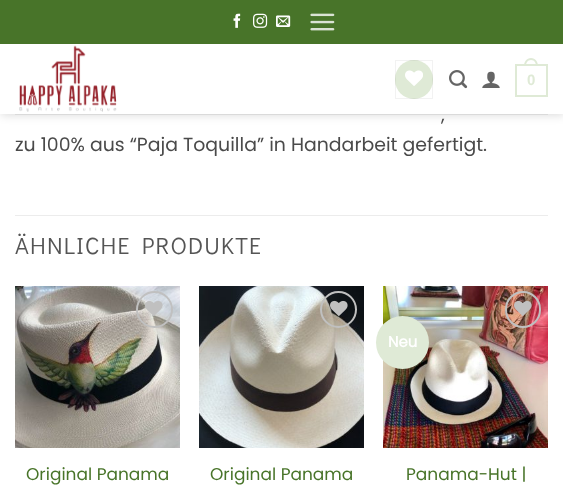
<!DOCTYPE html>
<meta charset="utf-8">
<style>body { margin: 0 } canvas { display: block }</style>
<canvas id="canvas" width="563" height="491"></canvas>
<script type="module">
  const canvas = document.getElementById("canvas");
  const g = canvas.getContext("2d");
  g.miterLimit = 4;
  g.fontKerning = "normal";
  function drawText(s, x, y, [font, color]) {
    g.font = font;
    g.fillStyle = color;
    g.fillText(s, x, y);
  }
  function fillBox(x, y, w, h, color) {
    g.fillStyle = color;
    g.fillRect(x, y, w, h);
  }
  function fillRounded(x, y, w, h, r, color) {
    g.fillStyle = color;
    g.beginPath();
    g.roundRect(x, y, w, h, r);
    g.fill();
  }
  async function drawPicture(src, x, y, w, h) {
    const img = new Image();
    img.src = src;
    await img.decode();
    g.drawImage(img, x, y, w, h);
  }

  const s1 = ["bold 15px Liberation Sans", "#DFEAD6"];
  const s2 = ["18.9px Poppins", "#4A4A4A"];
  const s3 = ["23.6px Didact Gothic", "#555555"];
  const s4 = ["17px Poppins", "#487429"];
  const s5 = ["bold 15px Poppins", "#FFFFFF"];

  fillBox(0, 0, 563, 491, "#FFFFFF");
  g.fillStyle = "rgba(0, 0, 0, 0.15)";
  g.filter = "blur(5px)";
  g.beginPath();
  g.rect(1, 1, 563, 114);
  g.fill();
  g.filter = "none";
  fillBox(0, 0, 563, 44, "#487429");
  await drawPicture("pic1.png", 233, 13, 8, 15);
  await drawPicture("pic2.png", 253, 13, 15, 15);
  await drawPicture("pic3.png", 276, 15, 15, 12);
  await drawPicture("pic4.png", 310, 13, 25, 18);
  fillBox(0, 44, 563, 70, "#FFFFFF");
  await drawPicture("pic5.png", 19, 45, 98, 67);
  fillRounded(395, 60, 38, 39, 19, "#DFEAD6");
  g.strokeStyle = "rgba(0, 0, 0, 0.05)";
  g.strokeRect(395.5, 60.5, 37, 38);
  await drawPicture("pic6.png", 405, 70, 18, 16);
  await drawPicture("pic7.png", 449, 70, 19, 19);
  await drawPicture("pic8.png", 482, 71, 18, 17);
  g.strokeStyle = "#DFEAD6";
  g.lineWidth = 2;
  g.strokeRect(516, 65, 31, 31);
  g.beginPath();
  g.moveTo(531, 58);
  g.bezierCurveTo(535.5, 58, 538, 62, 538, 66);
  g.lineTo(524, 66);
  g.bezierCurveTo(524, 62, 526.5, 58, 531, 58);
  g.closePath();
  g.moveTo(531, 60);
  g.bezierCurveTo(534.5, 60, 536, 63, 536, 66);
  g.lineTo(526, 66);
  g.bezierCurveTo(526, 63, 527.5, 60, 531, 60);
  g.closePath();
  g.fill("evenodd");
  drawText("0", 527, 85, s1);
  fillBox(15, 114, 533, 1, "rgba(74, 74, 74, 0.1)");
  drawText(",", 441, 121, s2);
  drawText("zu 100% aus “Paja Toquilla” in Handarbeit gefertigt.", 15, 151, s2);
  fillBox(15, 215, 533, 1, "#ECECEC");
  g.letterSpacing = "1.2px";
  drawText("ÄHNLICHE PRODUKTE", 15, 254, s3);
  await drawPicture("pic9.png", 15, 286, 165, 162);
  g.beginPath();
  g.arc(154.5, 309.5, 17.5, 0, Math.PI * 2);
  g.strokeStyle = "#C0C0C0";
  g.stroke();
  await drawPicture("pic10.png", 145, 301, 18, 15);
  g.letterSpacing = "0px";
  drawText("Original Panama", 26, 480, s4);
  await drawPicture("pic11.png", 199, 286, 165, 162);
  g.beginPath();
  g.arc(338.5, 309.5, 17.5, 0, Math.PI * 2);
  g.stroke();
  await drawPicture("pic12.png", 330, 300, 18, 16);
  drawText("Original Panama", 210, 480, s4);
  await drawPicture("pic13.png", 383, 286, 165, 162);
  g.fillStyle = "#DFEAD6";
  g.beginPath();
  g.arc(402.5, 342.5, 26.5, 0, Math.PI * 2);
  g.fill();
  drawText("Neu", 388, 347, s5);
  g.beginPath();
  g.roundRect(506, 292, 34, 35, 17);
  g.stroke();
  await drawPicture("pic14.png", 514, 300, 18, 16);
  drawText("Panama-Hut |", 406, 480, s4);
</script>
